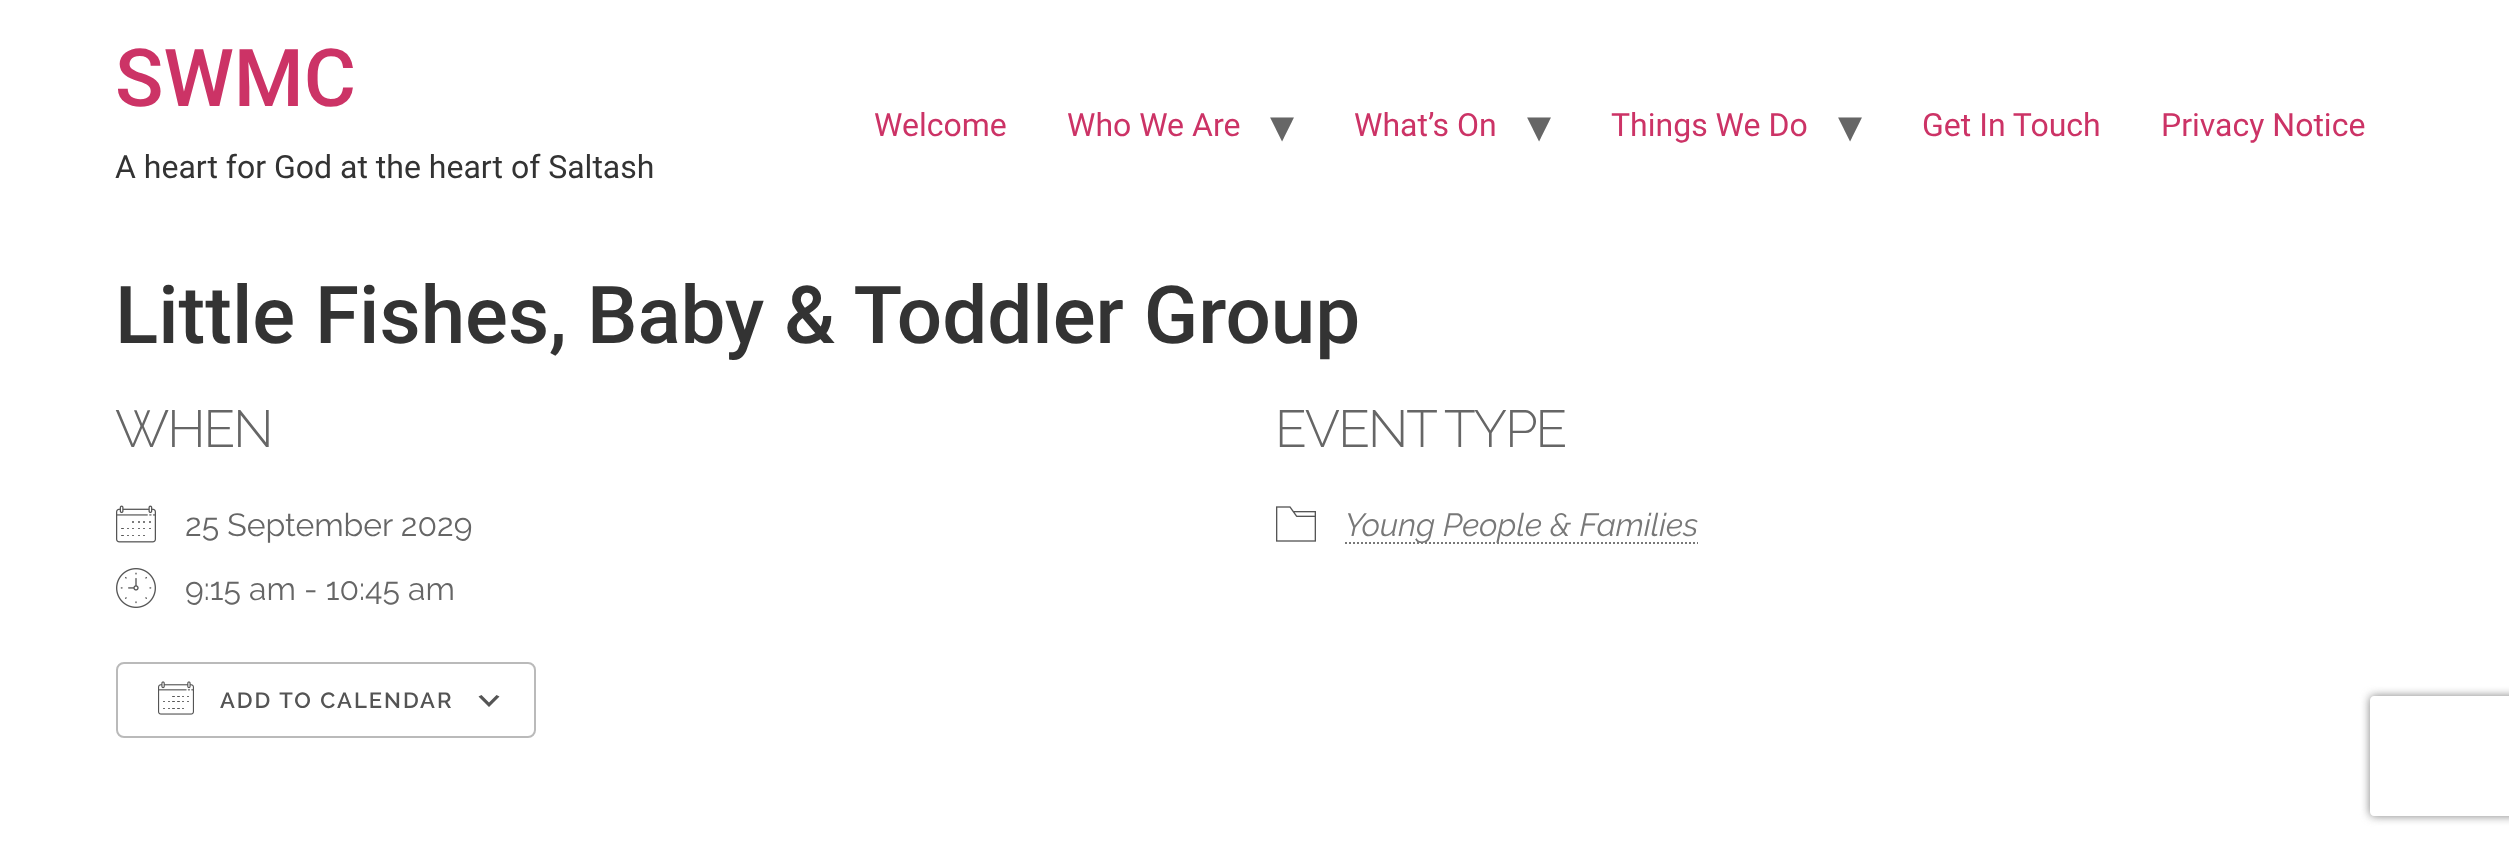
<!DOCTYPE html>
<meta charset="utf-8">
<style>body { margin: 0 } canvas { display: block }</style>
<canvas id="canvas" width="2509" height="843"></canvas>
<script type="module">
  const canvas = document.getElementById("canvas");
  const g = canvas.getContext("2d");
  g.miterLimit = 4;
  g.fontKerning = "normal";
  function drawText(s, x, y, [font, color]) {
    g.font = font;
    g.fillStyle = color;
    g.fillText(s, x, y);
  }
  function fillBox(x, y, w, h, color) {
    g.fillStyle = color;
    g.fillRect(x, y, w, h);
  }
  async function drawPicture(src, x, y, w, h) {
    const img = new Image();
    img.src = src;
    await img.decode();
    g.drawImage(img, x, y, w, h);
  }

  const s1 = ["500 80px Roboto", "#CC3366"];
  const s2 = ["32px Roboto", "#333333"];
  const s3 = ["32px Roboto", "#CC3366"];
  const s4 = ["48px DejaVu Sans", "#666666"];
  const s5 = ["500 80px Roboto", "#333333"];
  const s6 = ["300 52px Raleway", "#666666"];
  const s7 = ["32px Raleway", "#666666"];
  const s8 = ["600 22px Raleway", "#545454"];
  const s9 = ["italic 32px Raleway", "#787878"];

  fillBox(0, 0, 2509, 843, "#FFFFFF");
  drawText("SWMC", 115, 106, s1);
  drawText("A heart for God at the heart of Saltash", 115, 178, s2);
  drawText("Welcome", 874, 136, s3);
  drawText("Who We Are", 1067, 136, s3);
  drawText("▾", 1270, 142, s4);
  drawText("What’s On", 1354, 136, s3);
  drawText("▾", 1527, 142, s4);
  drawText("Things We Do", 1611, 136, s3);
  drawText("▾", 1838, 142, s4);
  drawText("Get In Touch", 1922, 136, s3);
  drawText("Privacy Notice", 2161, 136, s3);
  drawText("Little Fishes, Baby & Toddler Group", 115, 343, s5);
  g.letterSpacing = "-2px";
  drawText("WHEN", 115, 447, s6);
  await drawPicture("pic1.png", 116, 505, 40, 38);
  g.letterSpacing = "0px";
  drawText("25 September 2029", 185, 536, s7);
  await drawPicture("pic2.png", 116, 568, 40, 40);
  drawText("9:15 am - 10:45 am", 185, 600, s7);
  g.fillStyle = "#555555";
  g.beginPath();
  g.moveTo(481.5, 695);
  g.lineTo(489, 702.5);
  g.lineTo(496.5, 695);
  g.lineTo(499.5, 696.5);
  g.lineTo(489, 707);
  g.lineTo(478.5, 696.5);
  g.closePath();
  g.fill();
  g.beginPath();
  g.roundRect(117, 663, 418, 74, 7);
  g.strokeStyle = "#BABABA";
  g.lineWidth = 2;
  g.stroke();
  await drawPicture("pic3.png", 158, 681, 36, 34);
  g.letterSpacing = "2px";
  drawText("ADD TO CALENDAR", 220, 708, s8);
  g.letterSpacing = "-2px";
  drawText("EVENT TYPE", 1275, 447, s6);
  await drawPicture("pic4.png", 1276, 506, 40, 36);
  g.beginPath();
  g.moveTo(1345, 543);
  g.lineTo(1698, 543);
  g.strokeStyle = "#787878";
  g.setLineDash([2, 2]);
  g.stroke();
  g.letterSpacing = "0px";
  drawText("Young People & Families", 1345, 536, s9);
  g.save();
  g.beginPath();
  g.moveTo(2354, 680);
  g.lineTo(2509, 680);
  g.lineTo(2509, 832);
  g.lineTo(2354, 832);
  g.closePath();
  g.moveTo(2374, 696);
  g.lineTo(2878, 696);
  g.bezierCurveTo(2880, 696, 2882, 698, 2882, 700);
  g.lineTo(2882, 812);
  g.bezierCurveTo(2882, 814, 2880, 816, 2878, 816);
  g.lineTo(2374, 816);
  g.bezierCurveTo(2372, 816, 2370, 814, 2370, 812);
  g.lineTo(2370, 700);
  g.bezierCurveTo(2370, 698, 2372, 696, 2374, 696);
  g.closePath();
  g.clip("evenodd");
  g.fillStyle = "#808080";
  g.filter = "blur(5px)";
  g.beginPath();
  g.roundRect(2370, 696, 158, 120, 4);
  g.fill();
  g.filter = "none";
  g.restore();
</script>
